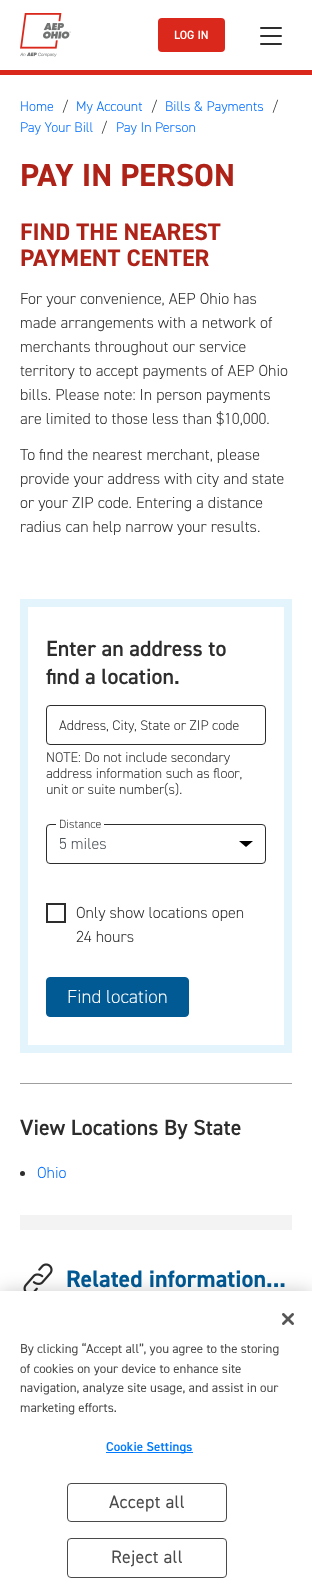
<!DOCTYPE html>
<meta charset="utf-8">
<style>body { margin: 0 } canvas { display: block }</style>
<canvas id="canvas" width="312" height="1594"></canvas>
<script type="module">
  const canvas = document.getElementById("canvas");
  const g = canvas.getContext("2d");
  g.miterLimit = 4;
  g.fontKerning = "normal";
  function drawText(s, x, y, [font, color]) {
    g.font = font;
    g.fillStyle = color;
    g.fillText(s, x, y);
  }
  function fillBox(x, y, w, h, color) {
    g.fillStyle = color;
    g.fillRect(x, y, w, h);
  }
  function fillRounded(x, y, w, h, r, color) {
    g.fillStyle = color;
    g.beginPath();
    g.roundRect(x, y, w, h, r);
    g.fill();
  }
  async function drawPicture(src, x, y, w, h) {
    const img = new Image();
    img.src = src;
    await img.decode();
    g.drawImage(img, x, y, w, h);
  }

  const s1 = ["600 12px 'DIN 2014'", "#FFFFFF"];
  const s2 = ["300 14px 'DIN 2014'", "#006DFF"];
  const s3 = ["300 14px 'DIN 2014'", "#2D2D2D"];
  const s4 = ["bold 32px 'DIN 2014'", "#AF2218"];
  const s5 = ["bold 24px 'DIN 2014'", "#AF2218"];
  const s6 = ["300 16px 'DIN 2014'", "#2D2D2D"];
  const s7 = ["600 22px 'DIN 2014'", "#2D2D2D"];
  const s8 = ["300 12px 'DIN 2014'", "#2D2D2D"];
  const s9 = ["300 16px 'DIN 2014'", "#495057"];
  const s10 = ["300 19px 'DIN 2014'", "#FFFFFF"];
  const s11 = ["300 16px 'DIN 2014'", "#006DFF"];
  const s12 = ["bold 24px 'DIN 2014'", "#025A95"];
  const s13 = ["13px 'DIN 2014'", "#4A4A4A"];
  const s14 = ["600 13px 'DIN 2014'", "#007BFF"];
  const s15 = ["18px 'DIN 2014'", "#4A4A4A"];

  fillBox(0, 0, 312, 1594, "#FFFFFF");
  fillBox(0, 70, 312, 5, "#DA291C");
  await drawPicture("pic1.png", 20, 13, 51, 44);
  fillRounded(158, 18, 67, 34, 4, "#DA291C");
  drawText("LOG IN", 174, 39, s1);
  fillRounded(260, 35, 22, 2, 1, "#2D2D2D");
  fillRounded(260, 27, 22, 2, 1, "#2D2D2D");
  fillRounded(260, 43, 22, 2, 1, "#2D2D2D");
  drawText("Home", 20, 111, s2);
  drawText("/", 62, 111, s3);
  drawText("My Account", 76, 111, s2);
  drawText("/", 151, 111, s3);
  drawText("Bills & Payments", 165, 111, s2);
  drawText("/", 272, 111, s3);
  drawText("Pay Your Bill", 20, 132, s2);
  drawText("/", 101, 132, s3);
  drawText("Pay In Person", 116, 132, s2);
  drawText("PAY IN PERSON", 20, 186, s4);
  drawText("FIND THE NEAREST", 20, 240, s5);
  drawText("PAYMENT CENTER", 20, 266, s5);
  drawText("For your convenience, AEP Ohio has", 20, 304, s6);
  drawText("made arrangements with a network of", 20, 328, s6);
  drawText("merchants throughout our service", 20, 352, s6);
  drawText("territory to accept payments of AEP Ohio", 20, 376, s6);
  drawText("bills. Please note: In person payments", 20, 400, s6);
  drawText("are limited to those less than $10,000.", 20, 424, s6);
  drawText("To find the nearest merchant, please", 20, 460, s6);
  drawText("provide your address with city and state", 20, 484, s6);
  drawText("or your ZIP code. Entering a distance", 20, 508, s6);
  drawText("radius can help narrow your results.", 20, 532, s6);
  g.strokeStyle = "#E4F4FD";
  g.lineWidth = 8;
  g.strokeRect(24, 603, 264, 446);
  drawText("Enter an address to", 46, 656, s7);
  drawText("find a location.", 46, 684, s7);
  g.beginPath();
  g.roundRect(46.5, 705.5, 219, 39, 3.5);
  g.strokeStyle = "#2D2D2D";
  g.lineWidth = 1;
  g.stroke();
  drawText("Address, City, State or ZIP code", 59, 730, s3);
  drawText("NOTE: Do not include secondary", 46, 762, s3);
  drawText("address information such as floor,", 46, 778, s3);
  drawText("unit or suite number(s).", 46, 794, s3);
  g.fillStyle = "#000000";
  g.beginPath();
  g.moveTo(246, 847);
  g.lineTo(239, 841);
  g.lineTo(253, 841);
  g.closePath();
  g.fill("evenodd");
  g.beginPath();
  g.roundRect(46.5, 824.5, 219, 39, 3.5);
  g.stroke();
  fillBox(56, 824, 48, 1, "#FFFFFF");
  drawText("Distance", 59, 828, s8);
  drawText("5 miles", 59, 849, s9);
  g.lineWidth = 2;
  g.strokeRect(47, 904, 18, 18);
  drawText("Only show locations open", 76, 918, s6);
  drawText("24 hours", 76, 942, s6);
  g.fillStyle = "#025A95";
  g.beginPath();
  g.roundRect(46.5, 977.5, 142, 39, 3.5);
  g.fill();
  g.strokeStyle = "#025A95";
  g.lineWidth = 1;
  g.stroke();
  drawText("Find location", 67, 1003, s10);
  fillBox(20, 1083, 272, 1, "#9E9FA1");
  drawText("View Locations By State", 20, 1135, s7);
  g.beginPath();
  g.arc(22.5, 1173.5, 2.5, 0, Math.PI * 2);
  g.fill();
  drawText("Ohio", 37, 1178, s11);
  fillBox(20, 1215, 272, 15, "#F3F3F3");
  await drawPicture("pic2.png", 23, 1263, 30, 28);
  drawText("Related information...", 66, 1287, s12);
  g.fillStyle = "rgba(0, 0, 0, 0.2)";
  g.filter = "blur(9px)";
  g.beginPath();
  g.rect(0, 1291, 312, 303);
  g.fill();
  g.filter = "none";
  fillBox(0, 1291, 312, 303, "#FFFFFF");
  await drawPicture("pic3.png", 282, 1313, 12, 12);
  drawText("By clicking “Accept all”, you agree to the storing", 20, 1353, s13);
  drawText("of cookies on your device to enhance site", 20, 1373, s13);
  drawText("navigation, analyze site usage, and assist in our", 20, 1392, s13);
  drawText("marketing efforts.", 20, 1412, s13);
  fillBox(106, 1452, 87, 1, "#007BFF");
  g.letterSpacing = "0.1px";
  drawText("Cookie Settings", 106, 1451, s14);
  g.beginPath();
  g.roundRect(67.5, 1483.5, 159, 38, 3.5);
  g.strokeStyle = "#4A4A4A";
  g.stroke();
  g.letterSpacing = "0.25px";
  drawText("Accept all", 109, 1508, s15);
  g.beginPath();
  g.roundRect(67.5, 1538.5, 159, 39, 3.5);
  g.stroke();
  drawText("Reject all", 111, 1563, s15);
</script>
